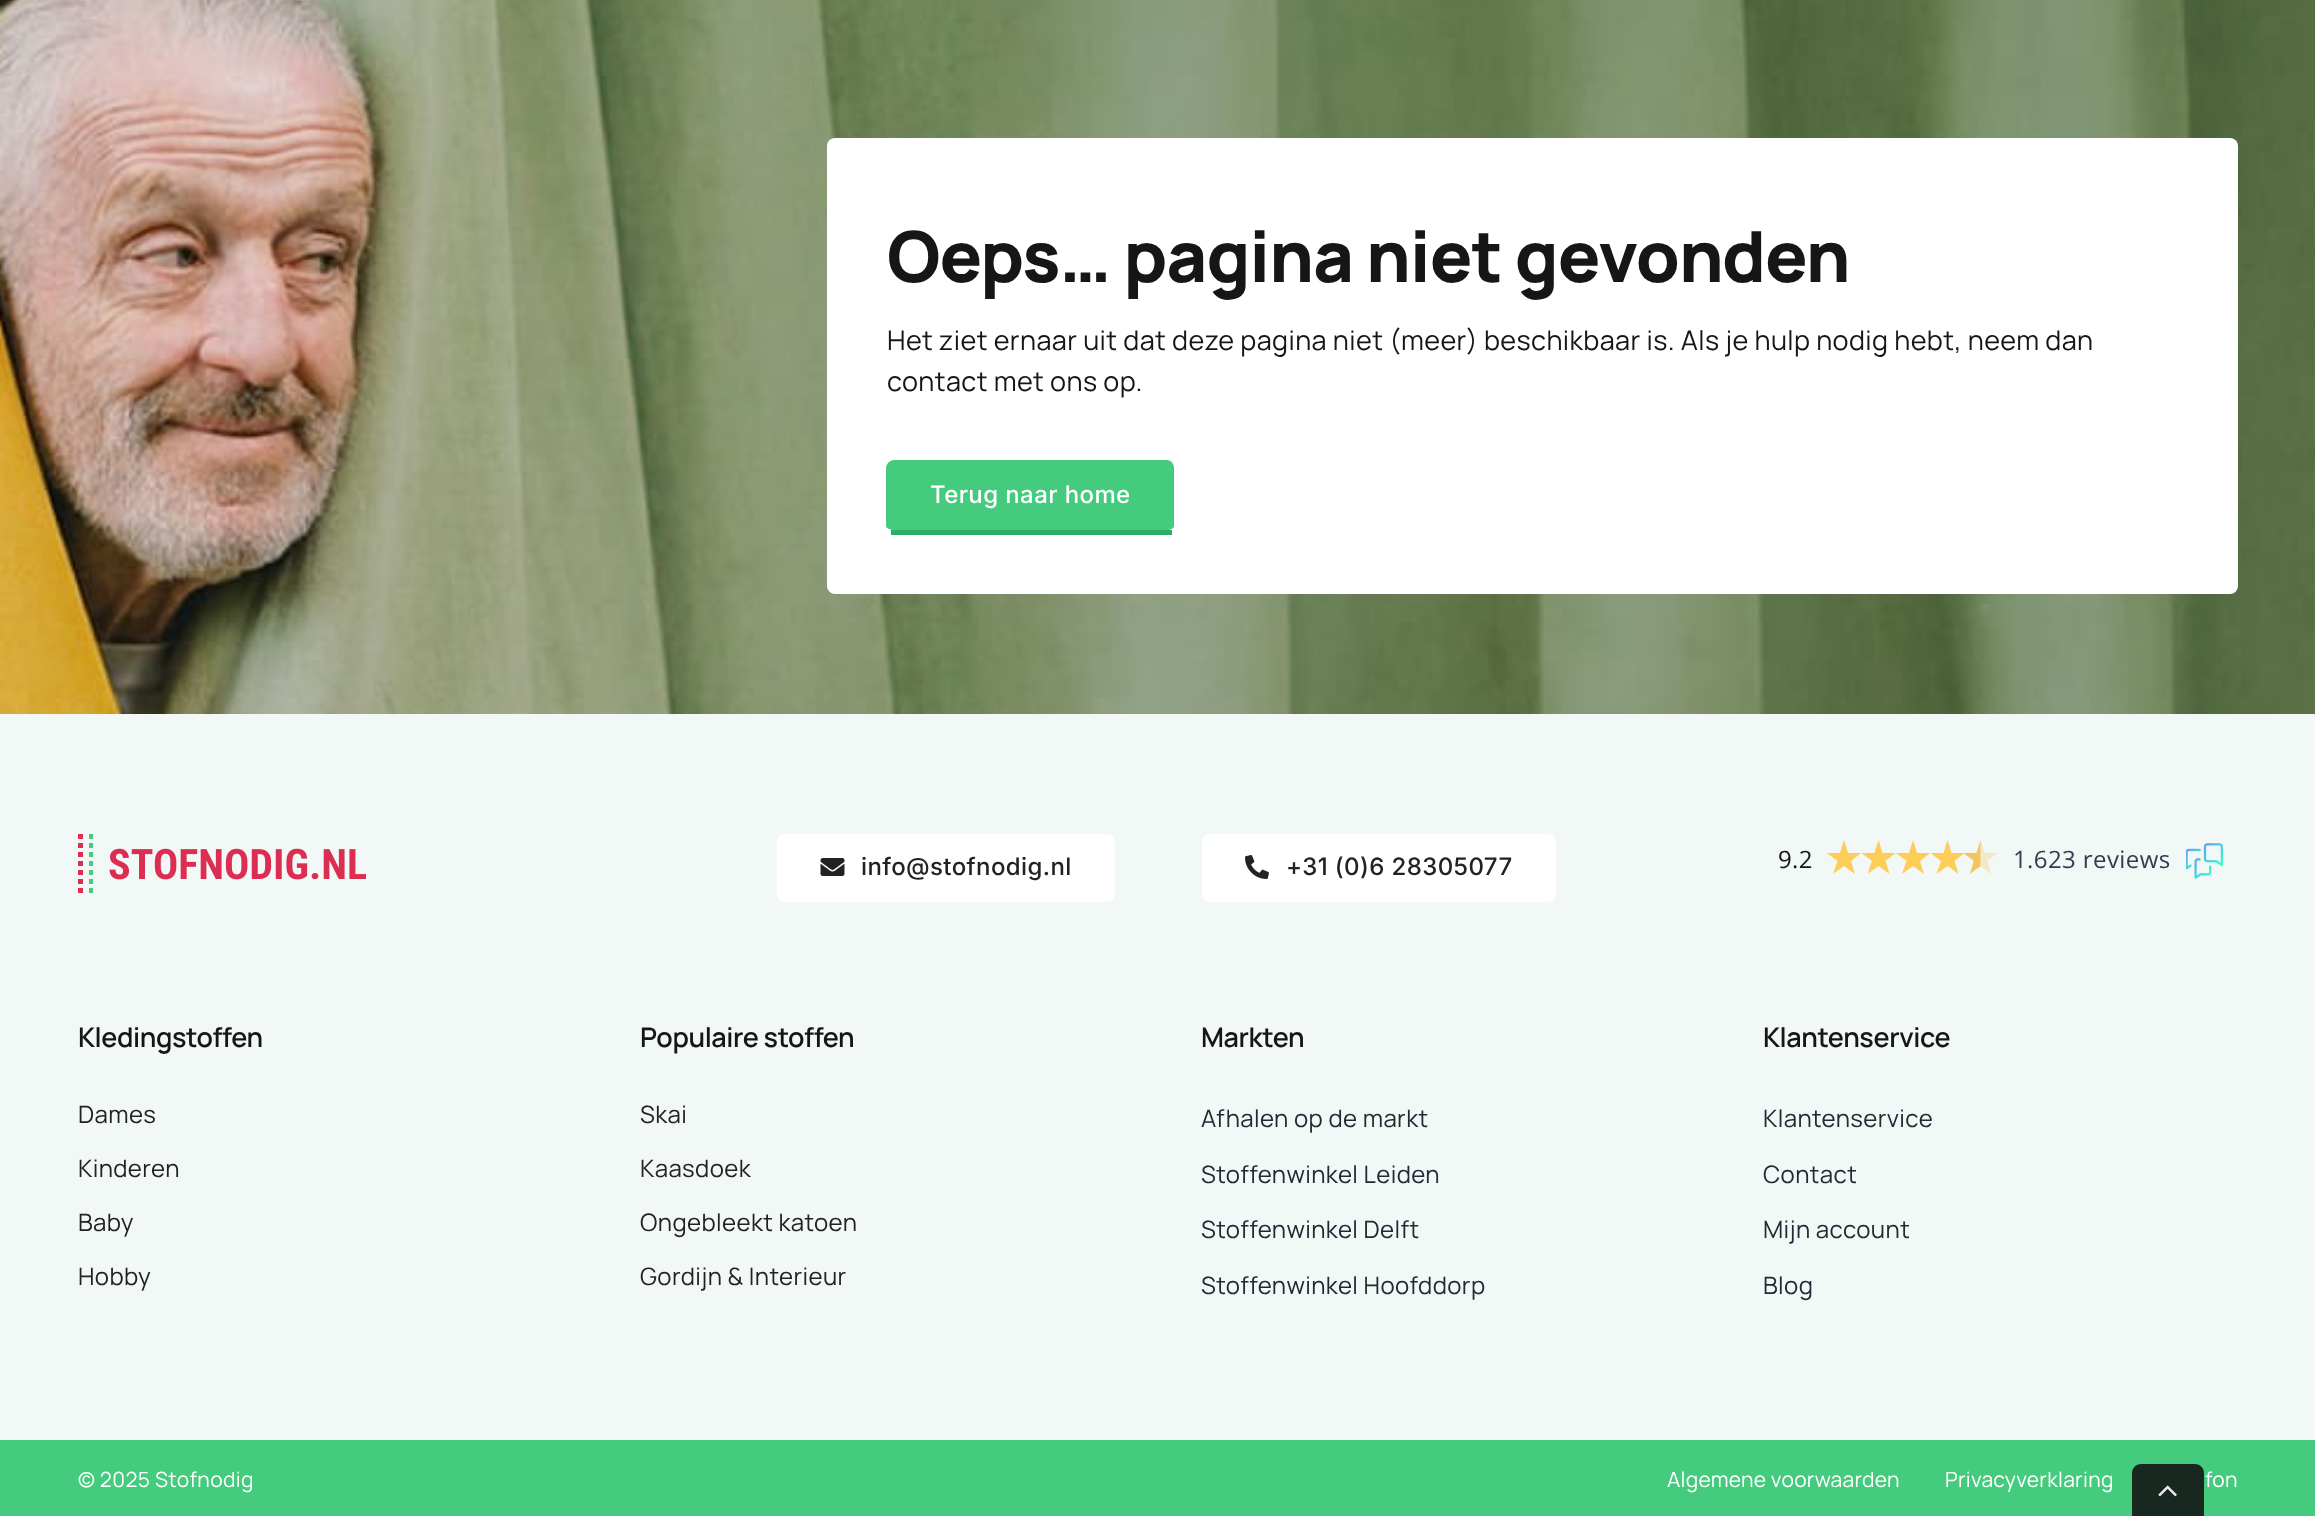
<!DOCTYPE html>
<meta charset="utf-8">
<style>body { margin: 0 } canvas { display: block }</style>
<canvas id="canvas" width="2315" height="1516"></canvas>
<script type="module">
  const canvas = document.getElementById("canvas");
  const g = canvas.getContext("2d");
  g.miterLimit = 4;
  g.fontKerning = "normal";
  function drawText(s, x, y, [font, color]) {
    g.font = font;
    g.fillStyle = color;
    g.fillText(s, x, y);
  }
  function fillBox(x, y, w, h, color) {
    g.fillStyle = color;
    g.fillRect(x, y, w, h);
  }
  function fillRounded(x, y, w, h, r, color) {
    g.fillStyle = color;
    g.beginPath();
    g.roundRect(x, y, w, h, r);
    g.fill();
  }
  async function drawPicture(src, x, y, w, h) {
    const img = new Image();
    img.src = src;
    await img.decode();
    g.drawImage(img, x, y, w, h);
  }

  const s1 = ["800 70.5px Manrope", "#141617"];
  const s2 = ["27px Manrope", "#141617"];
  const s3 = ["500 24px Inter", "#FFFFFF"];
  const s4 = ["500 24px Inter", "#222222"];
  const s5 = ["24px Open Sans", "#141617"];
  const s6 = ["24px Open Sans", "#303C50"];
  const s7 = ["600 27px Manrope", "#141617"];
  const s8 = ["24px Manrope", "#222222"];
  const s9 = ["24px Manrope", "#212934"];
  const s10 = ["21px Manrope", "#FFFFFF"];

  fillBox(0, 0, 2315, 1516, "#FFFFFF");
  await drawPicture("pic1.png", 0, 0, 2315, 714);
  fillRounded(827, 138, 1411, 456, 8, "#FFFFFF");
  g.letterSpacing = "-1.05px";
  drawText("Oeps… pagina niet gevonden", 887, 282, s1);
  g.letterSpacing = "0.4px";
  drawText("Het ziet ernaar uit dat deze pagina niet (meer) beschikbaar is. Als je hulp nodig hebt, neem dan", 887, 350, s2);
  drawText("contact met ons op.", 887, 391, s2);
  g.fillStyle = "#44CB7E";
  g.beginPath();
  g.moveTo(894, 460);
  g.lineTo(1167, 460);
  g.bezierCurveTo(1171, 460, 1174, 464, 1174, 468);
  g.lineTo(1174, 526);
  g.bezierCurveTo(1174, 528, 1171, 530, 1167, 530);
  g.lineTo(894, 530);
  g.bezierCurveTo(890, 530, 886, 528, 886, 526);
  g.lineTo(886, 468);
  g.bezierCurveTo(886, 464, 890, 460, 894, 460);
  g.closePath();
  g.fill();
  fillBox(891, 530, 281, 5, "#2BAE64");
  drawText("Terug naar home", 930, 503, s3);
  fillBox(0, 714, 2315, 726, "#F2F8F5");
  await drawPicture("pic2.png", 78, 834, 288, 59);
  fillRounded(777, 834, 338, 68, 8, "#FFFFFF");
  await drawPicture("pic3.png", 820, 858, 25, 18);
  drawText("info@stofnodig.nl", 861, 875, s4);
  fillRounded(1202, 834, 354, 68, 8, "#FFFFFF");
  await drawPicture("pic4.png", 1245, 855, 24, 24);
  drawText("+31 (0)6 28305077", 1286, 875, s4);
  drawText("9.2", 1778, 868, s5);
  g.fillStyle = "#FECD58";
  g.beginPath();
  g.moveTo(1855, 874);
  g.lineTo(1851, 861);
  g.lineTo(1861, 853);
  g.lineTo(1848, 853);
  g.lineTo(1844, 840);
  g.lineTo(1840, 853);
  g.lineTo(1827, 853);
  g.lineTo(1837.5, 861);
  g.lineTo(1833, 874);
  g.lineTo(1844, 866);
  g.closePath();
  g.fill();
  g.beginPath();
  g.moveTo(1889.5, 874);
  g.lineTo(1885.5, 861);
  g.lineTo(1895.5, 853);
  g.lineTo(1882.5, 853);
  g.lineTo(1878.5, 840);
  g.lineTo(1874.5, 853);
  g.lineTo(1861.5, 853);
  g.lineTo(1872, 861);
  g.lineTo(1867.5, 874);
  g.lineTo(1878.5, 866);
  g.closePath();
  g.fill();
  g.beginPath();
  g.moveTo(1924, 874);
  g.lineTo(1920, 861);
  g.lineTo(1930, 853);
  g.lineTo(1917, 853);
  g.lineTo(1913, 840);
  g.lineTo(1909, 853);
  g.lineTo(1896, 853);
  g.lineTo(1906.5, 861);
  g.lineTo(1902, 874);
  g.lineTo(1913, 866);
  g.closePath();
  g.fill();
  g.beginPath();
  g.moveTo(1958.5, 874);
  g.lineTo(1954.5, 861);
  g.lineTo(1964.5, 853);
  g.lineTo(1951.5, 853);
  g.lineTo(1947.5, 840);
  g.lineTo(1943.5, 853);
  g.lineTo(1930.5, 853);
  g.lineTo(1941, 861);
  g.lineTo(1936.5, 874);
  g.lineTo(1947.5, 866);
  g.closePath();
  g.fill();
  await drawPicture("pic5.png", 1964, 840, 34, 34);
  drawText("1.623 reviews", 2013, 868, s6);
  await drawPicture("pic6.png", 2186, 843, 37, 36);
  g.letterSpacing = "-0.4px";
  drawText("Kledingstoffen", 78, 1047, s7);
  g.letterSpacing = "0.4px";
  drawText("Dames", 78, 1123, s8);
  drawText("Kinderen", 78, 1177, s8);
  drawText("Baby", 78, 1231, s8);
  drawText("Hobby", 78, 1285, s8);
  g.letterSpacing = "-0.4px";
  drawText("Populaire stoffen", 640, 1047, s7);
  g.letterSpacing = "0.4px";
  drawText("Skai", 640, 1123, s8);
  drawText("Kaasdoek", 640, 1177, s8);
  drawText("Ongebleekt katoen", 640, 1231, s8);
  drawText("Gordijn & Interieur", 640, 1285, s8);
  g.letterSpacing = "-0.4px";
  drawText("Markten", 1201, 1047, s7);
  g.letterSpacing = "0.4px";
  drawText("Afhalen op de markt", 1201, 1127, s9);
  drawText("Stoffenwinkel Leiden", 1201, 1183, s9);
  drawText("Stoffenwinkel Delft", 1201, 1238, s9);
  drawText("Stoffenwinkel Hoofddorp", 1201, 1294, s9);
  g.letterSpacing = "-0.4px";
  drawText("Klantenservice", 1763, 1047, s7);
  g.letterSpacing = "0.4px";
  drawText("Klantenservice", 1763, 1127, s9);
  drawText("Contact", 1763, 1183, s9);
  drawText("Mijn account", 1763, 1238, s9);
  drawText("Blog", 1763, 1294, s9);
  fillBox(0, 1440, 2315, 76, "#44CB7E");
  drawText("© 2025 Stofnodig", 78, 1487, s10);
  g.letterSpacing = "0.3px";
  drawText("Algemene voorwaarden", 1667, 1487, s10);
  drawText("Privacyverklaring", 1945, 1487, s10);
  drawText("fon", 2205, 1487, s10);
  g.fillStyle = "rgba(20, 22, 23, 0.9)";
  g.beginPath();
  g.moveTo(2141, 1464);
  g.lineTo(2195, 1464);
  g.bezierCurveTo(2200, 1464, 2204, 1468, 2204, 1473);
  g.lineTo(2204, 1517);
  g.lineTo(2132, 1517);
  g.lineTo(2132, 1473);
  g.bezierCurveTo(2132, 1468, 2136, 1464, 2141, 1464);
  g.closePath();
  g.fill();
  await drawPicture("pic7.png", 2158, 1485, 19, 12);
</script>
